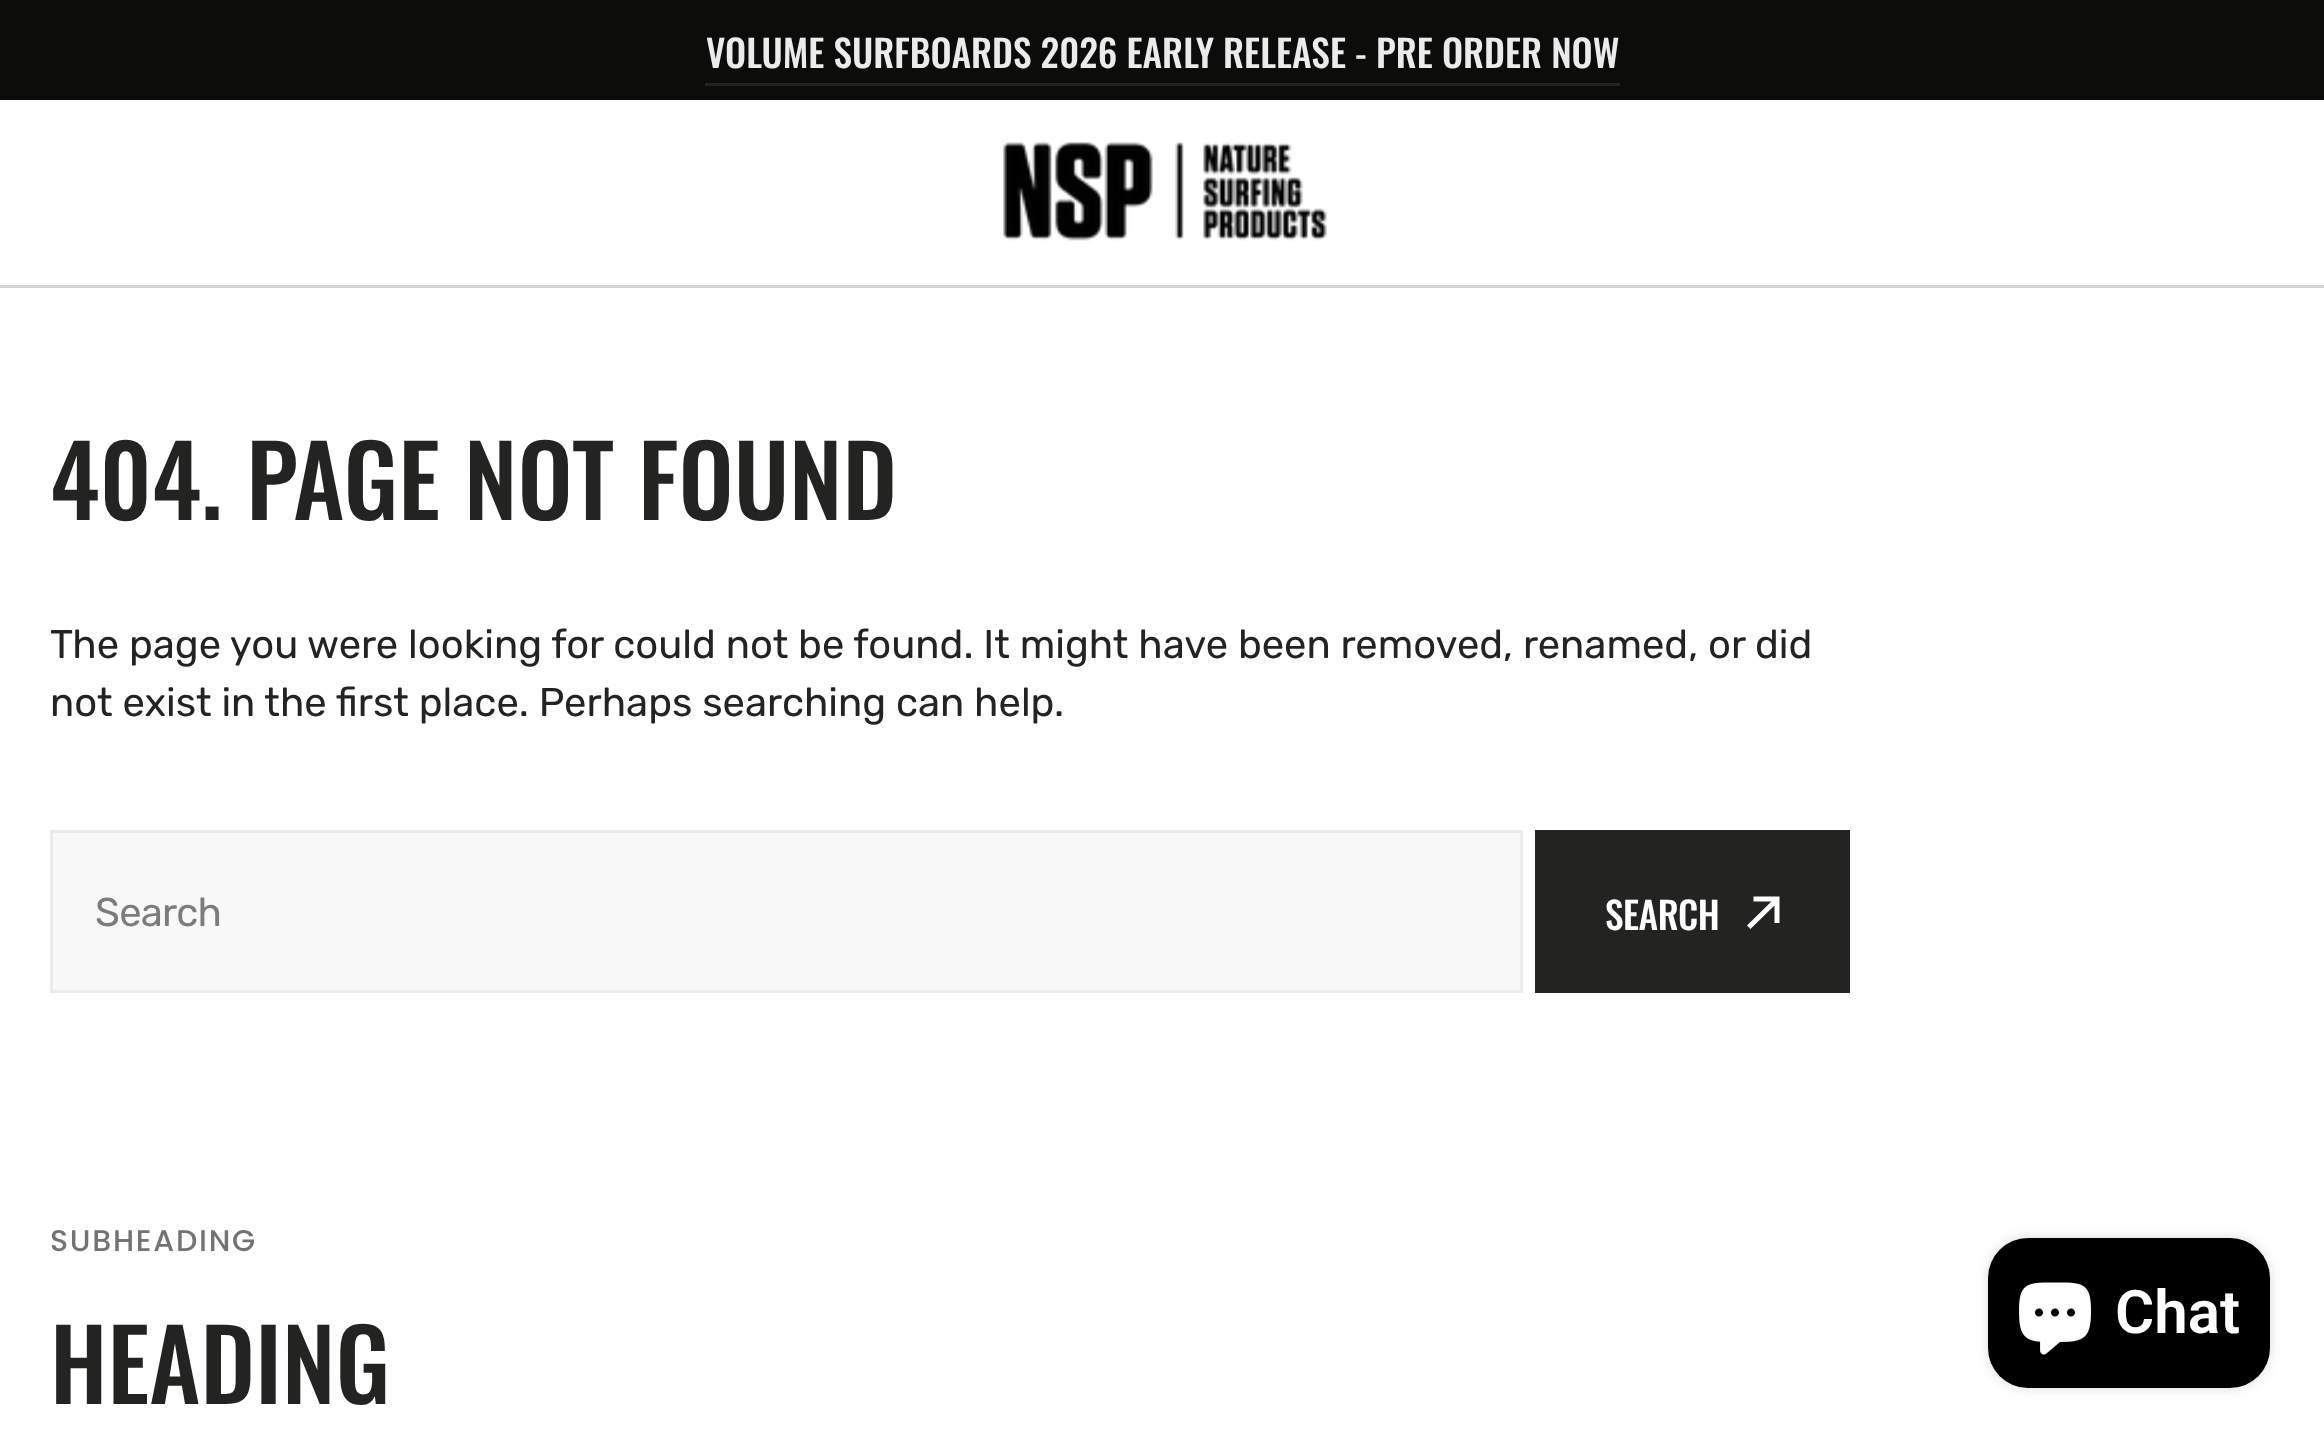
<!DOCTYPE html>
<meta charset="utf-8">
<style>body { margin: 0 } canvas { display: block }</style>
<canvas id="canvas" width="2324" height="1438"></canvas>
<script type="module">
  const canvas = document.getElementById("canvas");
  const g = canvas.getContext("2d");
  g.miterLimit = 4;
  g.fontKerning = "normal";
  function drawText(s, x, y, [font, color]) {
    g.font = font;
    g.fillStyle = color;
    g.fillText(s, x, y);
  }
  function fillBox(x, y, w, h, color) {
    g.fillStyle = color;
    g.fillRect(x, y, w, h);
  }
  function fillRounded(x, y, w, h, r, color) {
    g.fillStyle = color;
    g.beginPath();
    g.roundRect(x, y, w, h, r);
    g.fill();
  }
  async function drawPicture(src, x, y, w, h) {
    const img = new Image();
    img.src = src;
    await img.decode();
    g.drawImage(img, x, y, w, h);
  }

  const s1 = ["500 37.5px Oswald", "#EBEBEB"];
  const s2 = ["500 98px Oswald", "#232322"];
  const s3 = ["40px Rubik", "#232322"];
  const s4 = ["40px Rubik", "#7C7C7C"];
  const s5 = ["500 37.5px Oswald", "#FFFFFF"];
  const s6 = ["500 30px Poppins", "#737372"];
  const s7 = ["600 60px Roboto", "#FFFFFF"];

  fillBox(0, 0, 2324, 1438, "#FFFFFF");
  fillBox(0, 0, 2324, 100, "#0C0C0B");
  drawText("VOLUME SURFBOARDS 2026 EARLY RELEASE - PRE ORDER NOW", 706, 68, s1);
  fillBox(705, 83, 915, 3, "#232322");
  fillBox(0, 285, 2324, 3, "#D5D5D5");
  await drawPicture("pic1.png", 1003, 141, 324, 100);
  drawText("404. PAGE NOT FOUND", 50, 520, s2);
  drawText("The page you were looking for could not be found. It might have been removed, renamed, or did", 50, 658, s3);
  drawText("not exist in the first place. Perhaps searching can help.", 50, 716, s3);
  g.fillStyle = "#F8F8F8";
  g.beginPath();
  g.rect(51.5, 831.5, 1470, 160);
  g.fill();
  g.strokeStyle = "#EBEBEB";
  g.lineWidth = 3;
  g.stroke();
  g.letterSpacing = "-0.75px";
  drawText("Search", 95, 926, s4);
  fillBox(1535, 830, 315, 163, "#232322");
  g.letterSpacing = "-0.5px";
  drawText("SEARCH", 1605, 930, s5);
  g.beginPath();
  g.moveTo(1750.5, 925.5);
  g.lineTo(1775.5, 901);
  g.moveTo(1756, 899);
  g.lineTo(1777, 899);
  g.lineTo(1777, 920.5);
  g.strokeStyle = "#FFFFFF";
  g.lineWidth = 5;
  g.lineCap = "square";
  g.stroke();
  g.letterSpacing = "1.75px";
  drawText("SUBHEADING", 50, 1251, s6);
  g.letterSpacing = "0px";
  drawText("HEADING", 50, 1404, s2);
  g.fillStyle = "rgba(0, 0, 0, 0.15)";
  g.filter = "blur(6px)";
  g.beginPath();
  g.roundRect(1988, 1238, 282, 150, 40);
  g.fill();
  g.filter = "none";
  fillRounded(1988, 1238, 282, 150, 40, "#000000");
  await drawPicture("pic2.png", 2019, 1282, 72, 73);
  drawText("Chat", 2115, 1333, s7);
</script>
